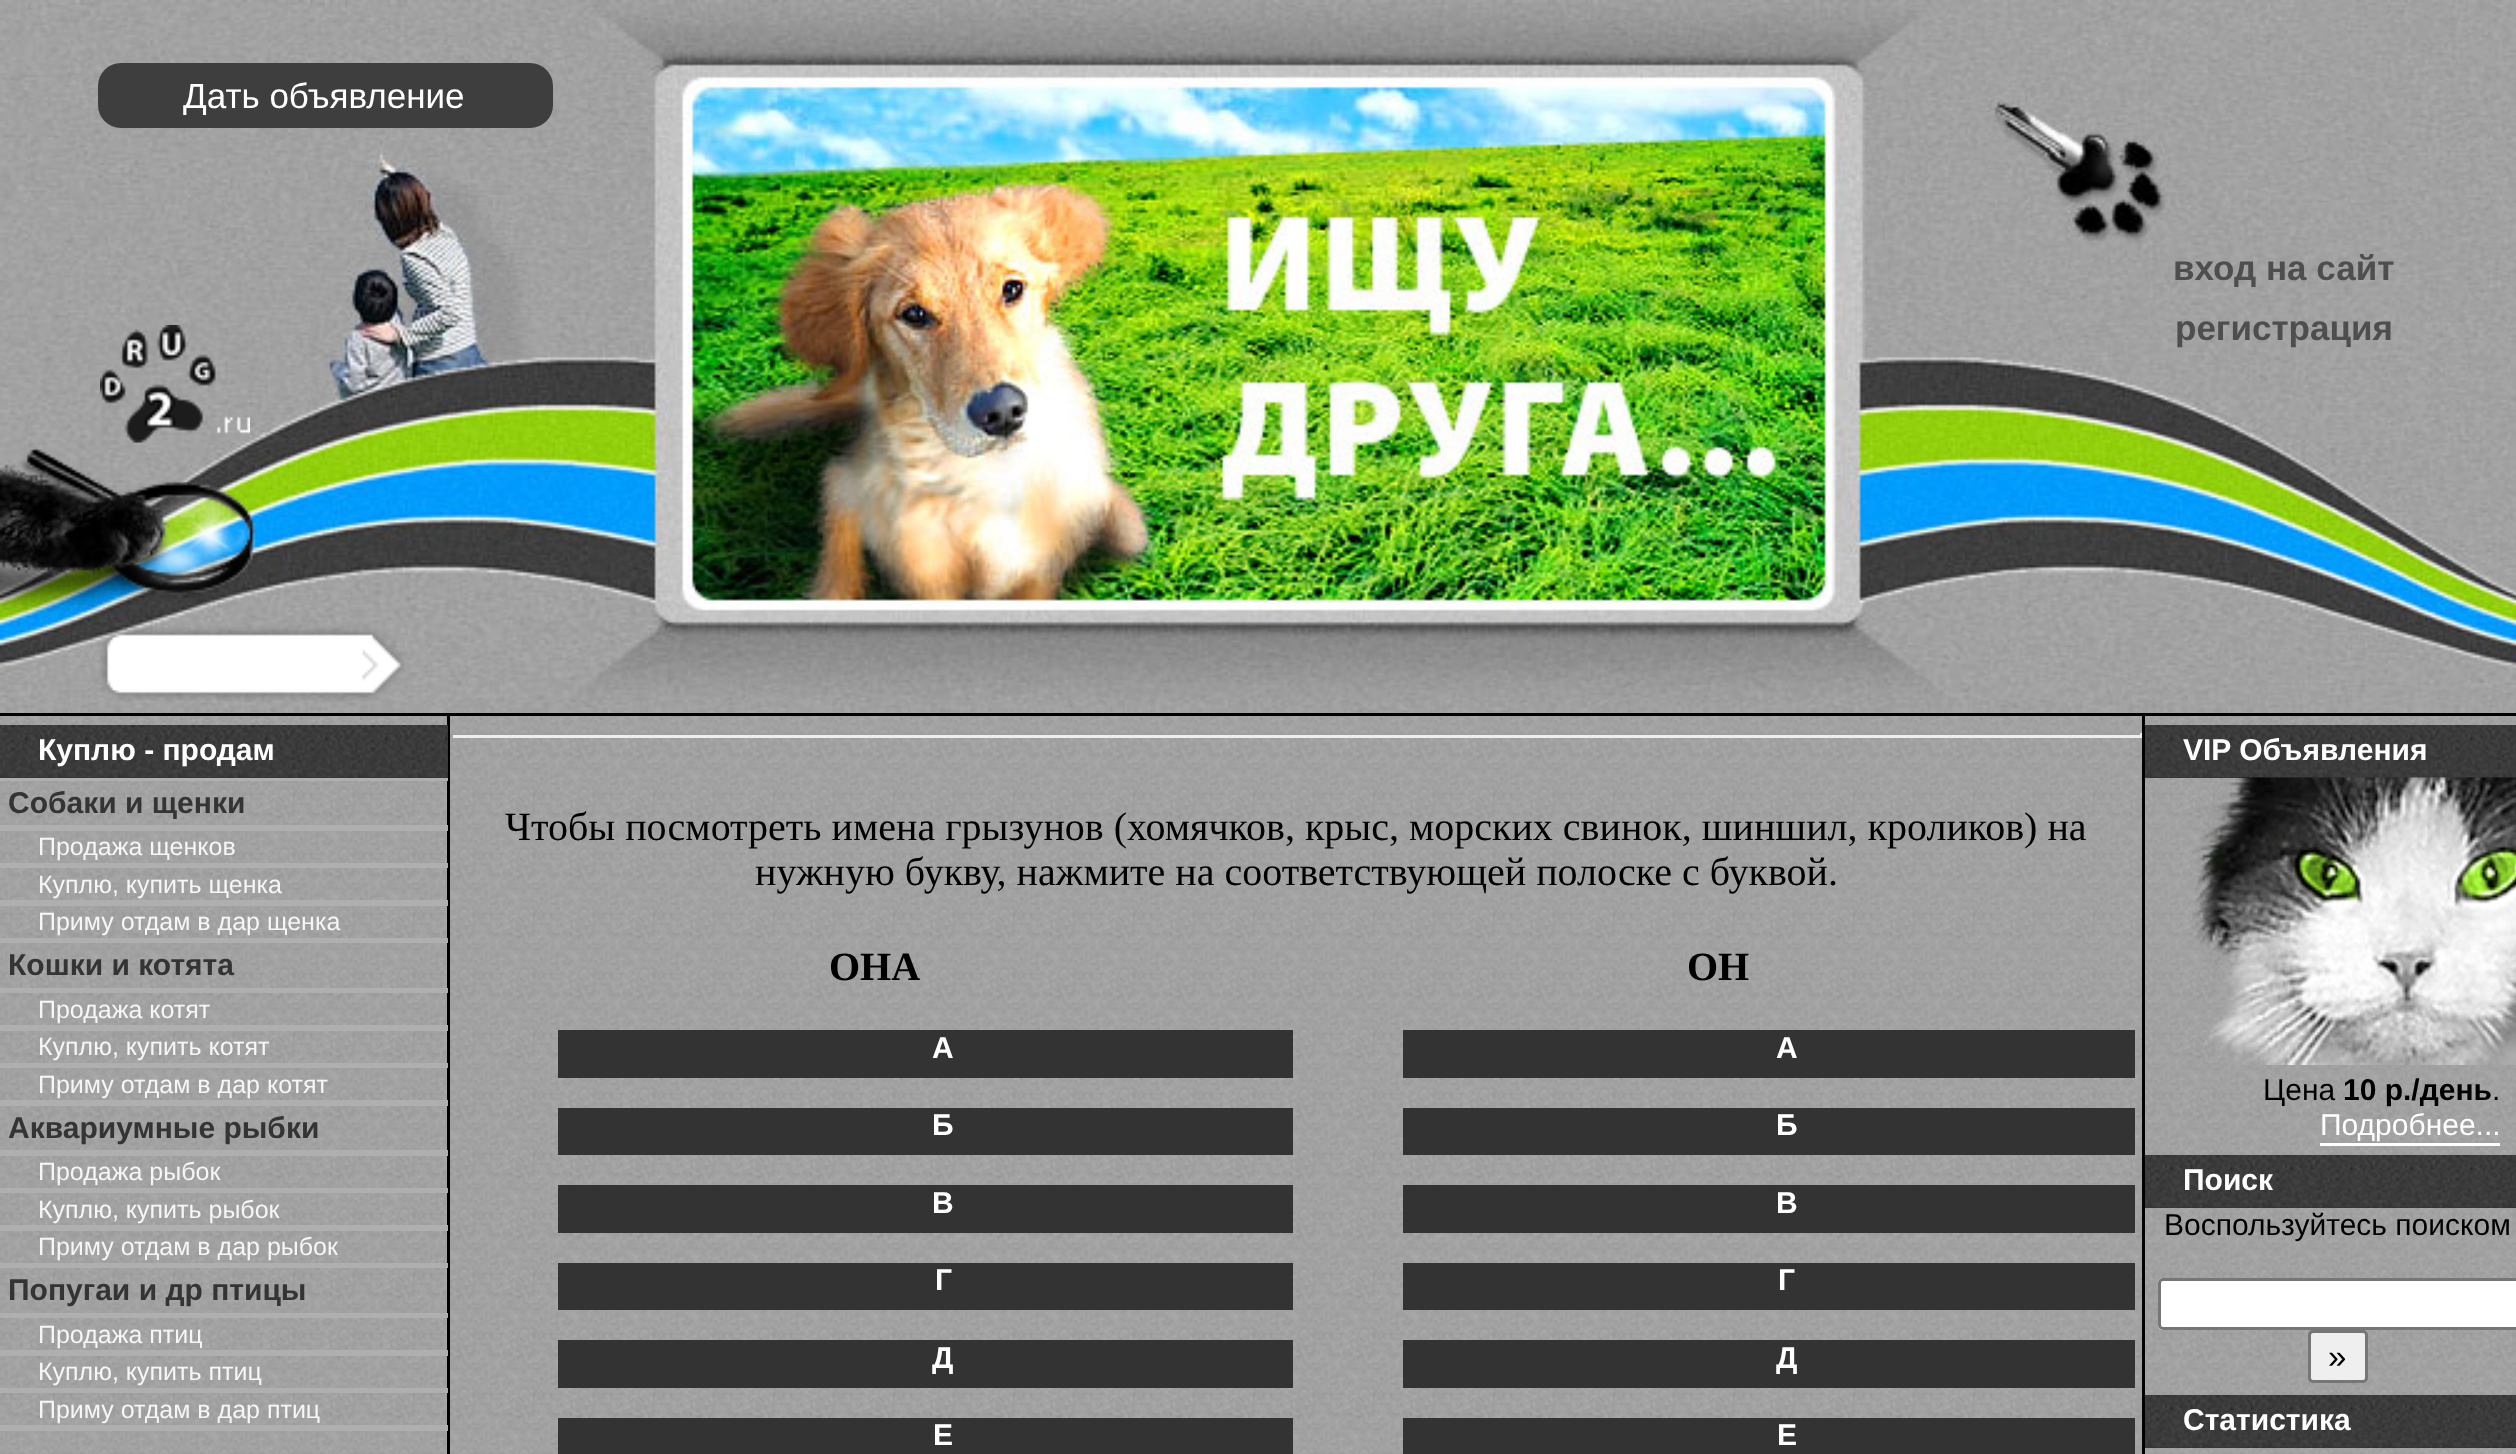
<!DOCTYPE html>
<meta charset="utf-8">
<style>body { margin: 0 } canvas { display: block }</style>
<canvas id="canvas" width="2516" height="1454"></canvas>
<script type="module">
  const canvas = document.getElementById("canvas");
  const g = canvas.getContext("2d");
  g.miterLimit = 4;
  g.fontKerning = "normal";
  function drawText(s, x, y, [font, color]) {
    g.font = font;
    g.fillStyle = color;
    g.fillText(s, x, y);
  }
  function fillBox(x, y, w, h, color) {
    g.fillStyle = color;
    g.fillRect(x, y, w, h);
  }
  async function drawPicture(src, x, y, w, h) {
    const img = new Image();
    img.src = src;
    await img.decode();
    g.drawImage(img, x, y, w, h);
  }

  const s1 = ["35px Liberation Sans", "#FFFFFF"];
  const s2 = ["bold 35px Liberation Sans", "#4E4E4E"];
  const s3 = ["bold 30px Liberation Sans", "#FFFFFF"];
  const s4 = ["bold 30px Liberation Sans", "#343434"];
  const s5 = ["25px Liberation Sans", "#F6F6F6"];
  const s6 = ["40px Liberation Serif", "#000000"];
  const s7 = ["bold 40px Liberation Serif", "#000000"];
  const s8 = ["30px Liberation Sans", "#000000"];
  const s9 = ["bold 30px Liberation Sans", "#000000"];
  const s10 = ["30px Liberation Sans", "#FFFFFF"];
  const s11 = ["33px Liberation Sans", "#000000"];

  fillBox(0, 0, 2516, 1454, "#FFFFFF");
  await drawPicture("pic1.png", 0, 716, 2516, 738);
  await drawPicture("pic2.png", 0, 712, 2516, 1);
  fillBox(0, 713, 2516, 3, "#000000");
  await drawPicture("pic3.png", 0, 0, 2516, 713);
  g.fillStyle = "#3E3E3E";
  g.beginPath();
  g.roundRect(99.5, 64.5, 452, 62, 21.5);
  g.fill();
  g.strokeStyle = "#3E3E3E";
  g.lineWidth = 3;
  g.stroke();
  drawText("Дать объявление", 183, 108, s1);
  drawText("вход на сайт", 2173, 280, s2);
  drawText("регистрация", 2175, 340, s2);
  await drawPicture("pic4.png", 100, 325, 150, 118);
  await drawPicture("pic5.png", 0, 447, 405, 254);
  fillBox(113, 638, 193, 52, "#FFFFFF");
  fillBox(447, 716, 3, 738, "#000000");
  fillBox(0, 725, 448, 53, "#333333");
  await drawPicture("pic6.png", 0, 725, 448, 53);
  drawText("Куплю - продам", 38, 760, s3);
  fillBox(0, 778, 448, 3, "#AFAFAF");
  fillBox(0, 825, 448, 6, "#AFAFAF");
  drawText("Собаки и щенки", 8, 813, s4);
  fillBox(0, 863, 448, 5, "#AFAFAF");
  drawText("Продажа щенков", 38, 855, s5);
  fillBox(0, 900, 448, 6, "#AFAFAF");
  drawText("Куплю, купить щенка", 38, 893, s5);
  fillBox(0, 938, 448, 5, "#AFAFAF");
  drawText("Приму отдам в дар щенка", 38, 930, s5);
  fillBox(0, 988, 448, 5, "#AFAFAF");
  drawText("Кошки и котята", 8, 975, s4);
  fillBox(0, 1025, 448, 6, "#AFAFAF");
  drawText("Продажа котят", 38, 1018, s5);
  fillBox(0, 1063, 448, 5, "#AFAFAF");
  drawText("Куплю, купить котят", 38, 1055, s5);
  fillBox(0, 1100, 448, 6, "#AFAFAF");
  drawText("Приму отдам в дар котят", 38, 1093, s5);
  fillBox(0, 1150, 448, 6, "#AFAFAF");
  drawText("Аквариумные рыбки", 8, 1138, s4);
  fillBox(0, 1188, 448, 5, "#AFAFAF");
  drawText("Продажа рыбок", 38, 1180, s5);
  fillBox(0, 1225, 448, 6, "#AFAFAF");
  drawText("Куплю, купить рыбок", 38, 1218, s5);
  fillBox(0, 1263, 448, 5, "#AFAFAF");
  drawText("Приму отдам в дар рыбок", 38, 1255, s5);
  fillBox(0, 1313, 448, 5, "#AFAFAF");
  drawText("Попугаи и др птицы", 8, 1300, s4);
  fillBox(0, 1350, 448, 6, "#AFAFAF");
  drawText("Продажа птиц", 38, 1343, s5);
  fillBox(0, 1388, 448, 5, "#AFAFAF");
  drawText("Куплю, купить птиц", 38, 1380, s5);
  fillBox(0, 1425, 448, 6, "#AFAFAF");
  drawText("Приму отдам в дар птиц", 38, 1418, s5);
  fillBox(450, 733, 1693, 2, "#9F9F9F");
  fillBox(2140, 733, 2, 5, "#EEEEEE");
  fillBox(450, 735, 1693, 3, "#EEEEEE");
  fillBox(450, 733, 3, 5, "#9F9F9F");
  drawText("Чтобы посмотреть имена грызунов (хомячков, крыс, морских свинок, шиншил, кроликов) на", 505, 840, s6);
  drawText("нужную букву, нажмите на соответствующей полоске с буквой.", 755, 885, s6);
  drawText("ОНА", 829, 980, s7);
  fillBox(558, 1030, 735, 48, "#333333");
  drawText("А", 932, 1058, s3);
  fillBox(558, 1108, 735, 47, "#333333");
  drawText("Б", 932, 1135, s3);
  fillBox(558, 1185, 735, 48, "#333333");
  drawText("В", 932, 1213, s3);
  fillBox(558, 1263, 735, 47, "#333333");
  drawText("Г", 935, 1290, s3);
  fillBox(558, 1340, 735, 48, "#333333");
  drawText("Д", 932, 1368, s3);
  fillBox(558, 1418, 735, 36, "#333333");
  drawText("Е", 933, 1445, s3);
  drawText("ОН", 1687, 980, s7);
  fillBox(1403, 1030, 732, 48, "#333333");
  drawText("А", 1776, 1058, s3);
  fillBox(1403, 1108, 732, 47, "#333333");
  drawText("Б", 1776, 1135, s3);
  fillBox(1403, 1185, 732, 48, "#333333");
  drawText("В", 1776, 1213, s3);
  fillBox(1403, 1263, 732, 47, "#333333");
  drawText("Г", 1778, 1290, s3);
  fillBox(1403, 1340, 732, 48, "#333333");
  drawText("Д", 1776, 1368, s3);
  fillBox(1403, 1418, 732, 36, "#333333");
  drawText("Е", 1777, 1445, s3);
  fillBox(2142, 716, 3, 738, "#000000");
  fillBox(2145, 777, 371, 1, "#333333");
  await drawPicture("pic7.png", 2145, 725, 371, 53);
  drawText("VIP Объявления", 2183, 760, s3);
  await drawPicture("pic8.png", 2192, 777, 324, 288);
  drawText("Цена", 2263, 1100, s8);
  drawText("10 р./день", 2343, 1100, s9);
  drawText(".", 2492, 1100, s8);
  drawText("Подробнее...", 2320, 1135, s10);
  fillBox(2320, 1143, 180, 3, "#FFFFFF");
  fillBox(2145, 1207, 371, 1, "#333333");
  await drawPicture("pic9.png", 2145, 1155, 371, 53);
  drawText("Поиск", 2183, 1190, s3);
  drawText("Воспользуйтесь поиском", 2164, 1235, s8);
  g.fillStyle = "#FFFFFF";
  g.beginPath();
  g.moveTo(2163, 1278);
  g.lineTo(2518, 1278);
  g.lineTo(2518, 1330);
  g.lineTo(2163, 1330);
  g.bezierCurveTo(2160, 1330, 2158, 1328, 2158, 1325);
  g.lineTo(2158, 1283);
  g.bezierCurveTo(2158, 1280, 2160, 1278, 2163, 1278);
  g.closePath();
  g.fill();
  g.beginPath();
  g.roundRect(2159.5, 1279.5, 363, 49, 3.5);
  g.strokeStyle = "#767676";
  g.stroke();
  g.fillStyle = "#EFEFEF";
  g.beginPath();
  g.roundRect(2309.5, 1331.5, 57, 50, 3.5);
  g.fill();
  g.stroke();
  drawText("»", 2328, 1368, s11);
  fillBox(2145, 1447, 371, 1, "#333333");
  await drawPicture("pic10.png", 2145, 1395, 371, 53);
  drawText("Статистика", 2183, 1430, s3);
</script>
